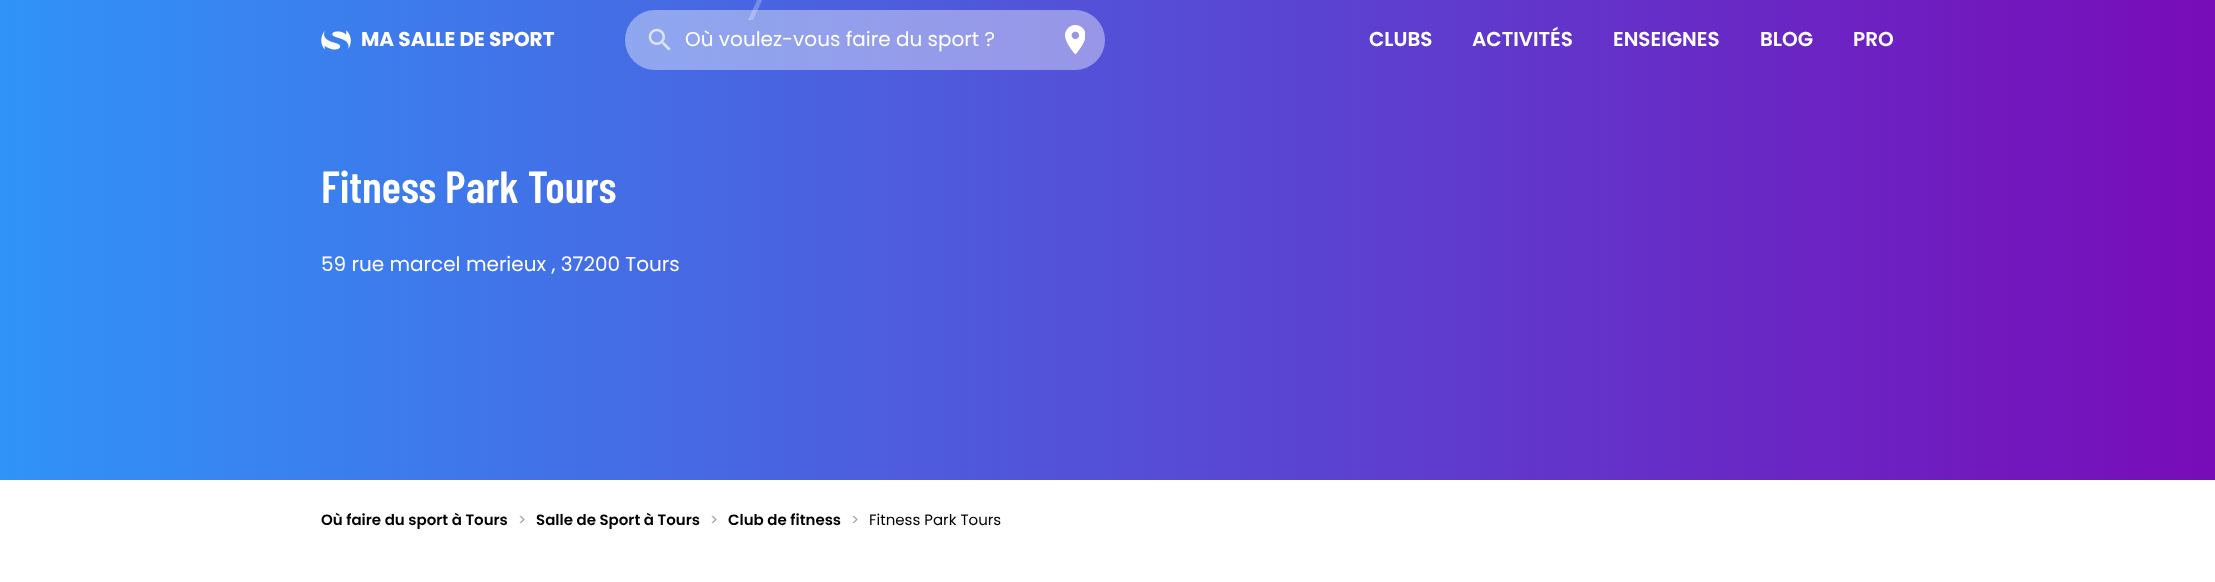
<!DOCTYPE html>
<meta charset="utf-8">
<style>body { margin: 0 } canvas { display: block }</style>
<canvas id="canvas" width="2215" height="582"></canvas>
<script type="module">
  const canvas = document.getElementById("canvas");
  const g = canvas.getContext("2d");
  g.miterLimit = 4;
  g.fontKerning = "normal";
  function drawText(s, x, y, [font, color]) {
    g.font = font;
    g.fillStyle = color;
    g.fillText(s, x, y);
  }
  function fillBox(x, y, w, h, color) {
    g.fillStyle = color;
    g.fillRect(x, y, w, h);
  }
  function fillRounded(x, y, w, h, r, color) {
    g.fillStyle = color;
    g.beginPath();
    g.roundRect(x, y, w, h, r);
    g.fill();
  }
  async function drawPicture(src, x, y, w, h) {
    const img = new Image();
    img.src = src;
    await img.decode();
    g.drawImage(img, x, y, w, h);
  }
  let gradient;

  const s1 = ["bold 20px Poppins", "#FFFFFF"];
  const s2 = ["20px Poppins", "#FFFFFF"];
  const s3 = ["600 20px Poppins", "#FFFFFF"];
  const s4 = ["600 45px Barlow Condensed", "#FFFFFF"];
  const s5 = ["600 15px Poppins", "#000000"];
  const s6 = ["15px Poppins", "#9CA3AF"];
  const s7 = ["15px Poppins", "#000000"];

  fillBox(0, 0, 2215, 582, "#FFFFFF");
  gradient = g.createLinearGradient(0, 240, 2215, 240);
  gradient.addColorStop(0, "#3093F7");
  gradient.addColorStop(1, "#780CB8");
  g.fillStyle = gradient;
  g.fillRect(0, 0, 2215, 480);
  await drawPicture("pic1.png", 321, 30, 30, 20);
  drawText("MA SALLE DE SPORT", 361, 46, s1);
  g.fillStyle = "#768CE9";
  g.beginPath();
  g.moveTo(748, 20);
  g.lineTo(753, 20);
  g.lineTo(838, -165);
  g.lineTo(833, -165);
  g.closePath();
  g.fill();
  fillRounded(625, 10, 480, 60, 30, "rgba(255, 255, 255, 0.4)");
  await drawPicture("pic2.png", 648, 28, 23, 23);
  drawText("Où voulez-vous faire du sport ?", 685, 46, s2);
  await drawPicture("pic3.png", 1065, 25, 20, 30);
  drawText("CLUBS", 1369, 46, s3);
  drawText("ACTIVITÉS", 1472, 46, s3);
  drawText("ENSEIGNES", 1613, 46, s3);
  drawText("BLOG", 1760, 46, s3);
  drawText("PRO", 1853, 46, s3);
  drawText("Fitness Park Tours", 321, 203, s4);
  drawText("59 rue marcel merieux , 37200 Tours", 321, 271, s2);
  drawText("Où faire du sport à Tours", 321, 525, s5);
  drawText(">", 518, 525, s6);
  drawText("Salle de Sport à Tours", 536, 525, s5);
  drawText(">", 710, 525, s6);
  drawText("Club de fitness", 728, 525, s5);
  drawText(">", 851, 525, s6);
  drawText("Fitness Park Tours", 869, 525, s7);
</script>
